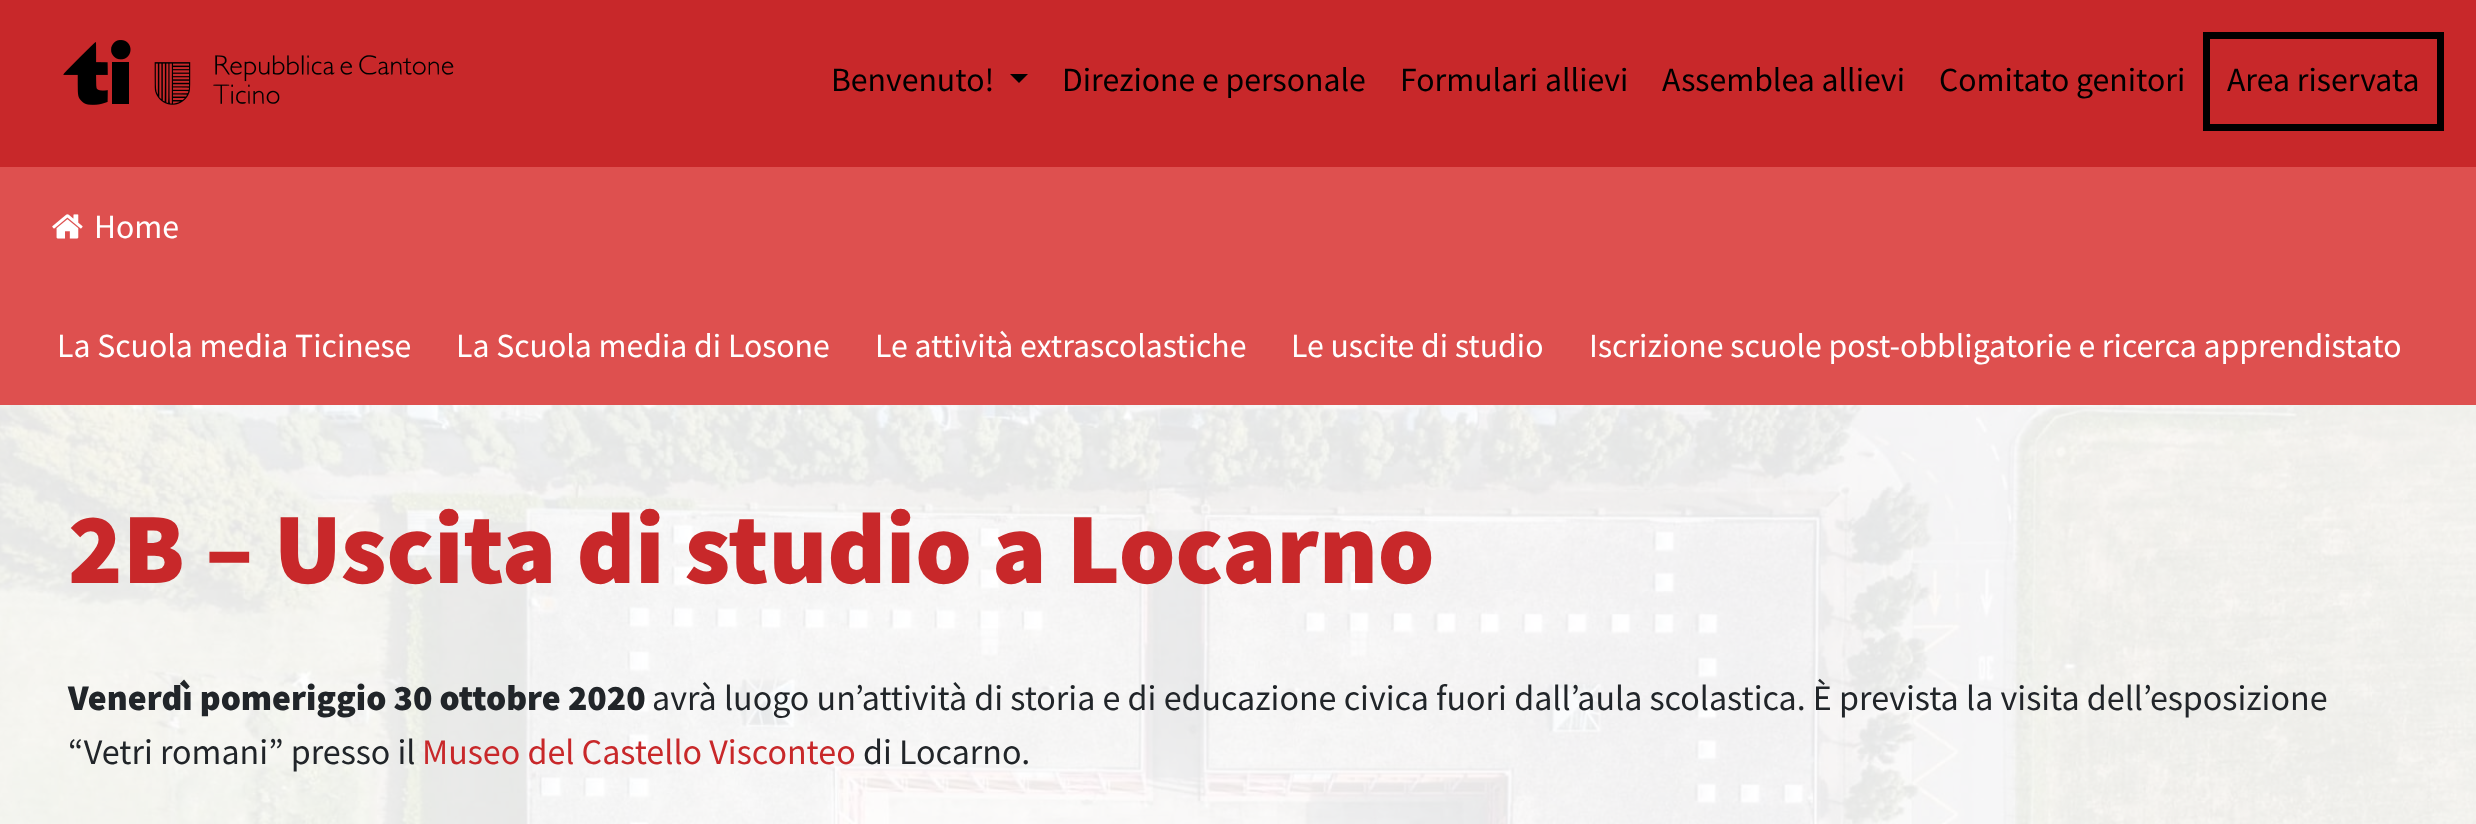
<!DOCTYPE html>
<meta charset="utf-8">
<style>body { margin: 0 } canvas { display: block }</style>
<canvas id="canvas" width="2476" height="824"></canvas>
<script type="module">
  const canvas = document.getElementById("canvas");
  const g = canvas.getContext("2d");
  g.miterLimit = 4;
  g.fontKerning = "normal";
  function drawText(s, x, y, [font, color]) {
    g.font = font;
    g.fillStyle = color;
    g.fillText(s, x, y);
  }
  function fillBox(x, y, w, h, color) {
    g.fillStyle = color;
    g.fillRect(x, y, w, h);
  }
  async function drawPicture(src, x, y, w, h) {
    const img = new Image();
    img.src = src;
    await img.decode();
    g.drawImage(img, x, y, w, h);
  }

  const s1 = ["33.75px Source Sans Pro", "#000000"];
  const s2 = ["33.75px Source Sans Pro", "#FFFFFF"];
  const s3 = ["900 101.25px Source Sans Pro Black", "#C8282A"];
  const s4 = ["900 36px Source Sans Pro Black", "#212529"];
  const s5 = ["36px Source Sans Pro", "#212529"];
  const s6 = ["36px Source Sans Pro", "#C8282A"];

  fillBox(0, 0, 2476, 824, "#DE504F");
  fillBox(0, 0, 2476, 167, "#C8282A");
  await drawPicture("pic1.png", 63, 40, 391, 65);
  drawText("Benvenuto!", 831, 91, s1);
  g.beginPath();
  g.moveTo(1010, 74);
  g.lineTo(1028, 74);
  g.lineTo(1019, 83);
  g.closePath();
  g.fill();
  drawText("Direzione e personale", 1062, 91, s1);
  drawText("Formulari allievi", 1400, 91, s1);
  drawText("Assemblea allievi", 1662, 91, s1);
  drawText("Comitato genitori", 1939, 91, s1);
  g.strokeStyle = "#000000";
  g.lineWidth = 7;
  g.strokeRect(2206.5, 35.5, 234, 92);
  drawText("Area riservata", 2227, 91, s1);
  await drawPicture("pic2.png", 52, 214, 31, 25);
  drawText("Home", 94, 238, s2);
  drawText("La Scuola media Ticinese", 57, 357, s2);
  drawText("La Scuola media di Losone", 456, 357, s2);
  drawText("Le attività extrascolastiche", 875, 357, s2);
  drawText("Le uscite di studio", 1291, 357, s2);
  drawText("Iscrizione scuole post-obbligatorie e ricerca apprendistato", 1589, 357, s2);
  await drawPicture("pic3.png", 0, 405, 2476, 419);
  drawText("2B – Uscita di studio a Locarno", 68, 583, s3);
  drawText("Venerdì pomeriggio 30 ottobre 2020", 68, 710, s4);
  drawText("avrà luogo un’attività di storia e di educazione civica fuori dall’aula scolastica. È prevista la visita dell’esposizione", 652, 710, s5);
  drawText("“Vetri romani” presso il", 68, 764, s5);
  drawText("Museo del Castello Visconteo", 422, 764, s6);
  drawText("di Locarno.", 863, 764, s5);
</script>
